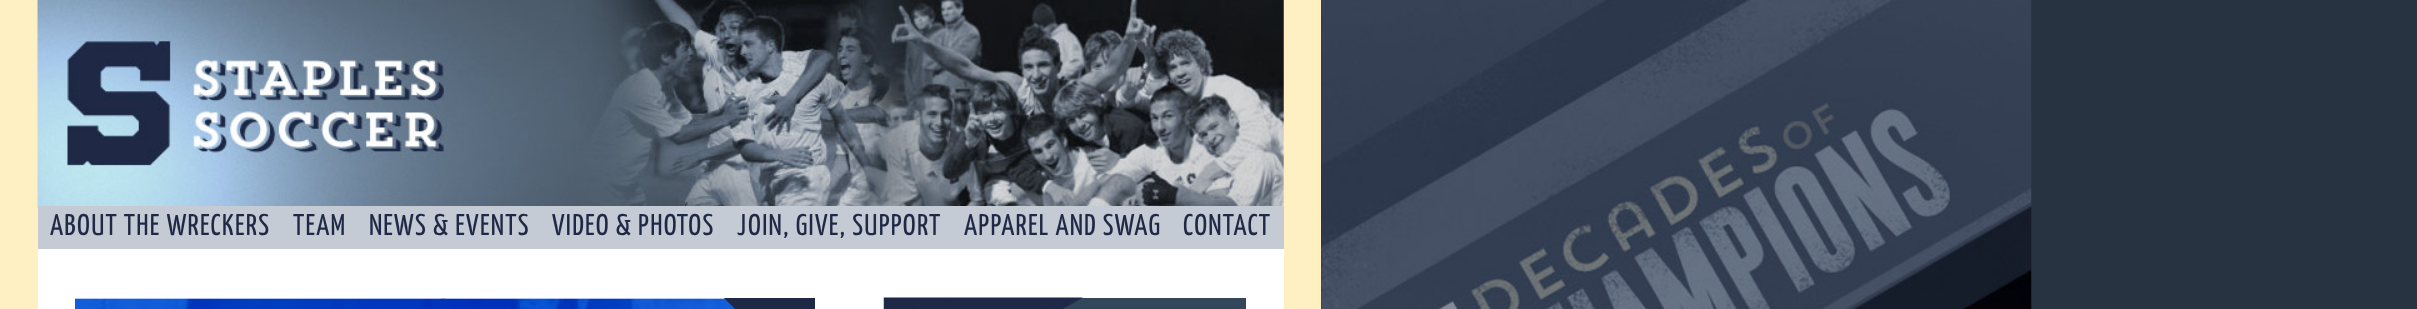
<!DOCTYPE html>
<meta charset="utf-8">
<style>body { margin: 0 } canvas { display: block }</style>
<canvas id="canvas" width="2417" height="309"></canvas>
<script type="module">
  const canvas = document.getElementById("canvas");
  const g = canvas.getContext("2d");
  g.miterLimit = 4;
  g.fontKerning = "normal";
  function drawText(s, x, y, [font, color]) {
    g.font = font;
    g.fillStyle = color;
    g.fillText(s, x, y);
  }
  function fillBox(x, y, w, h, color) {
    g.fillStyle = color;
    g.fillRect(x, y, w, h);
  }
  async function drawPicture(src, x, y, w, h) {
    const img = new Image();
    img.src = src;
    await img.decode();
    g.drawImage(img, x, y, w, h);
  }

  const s1 = ["30px Yanone Kaffeesatz", "#1F2945"];

  fillBox(0, 0, 2417, 309, "#283341");
  g.fillStyle = "rgba(0, 0, 0, 0.3)";
  g.filter = "blur(6px)";
  g.beginPath();
  g.rect(0, 0, 1321, 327);
  g.fill();
  g.filter = "none";
  fillBox(38, 0, 1246, 309, "#FFFFFF");
  fillBox(1284, 0, 37, 309, "#FEF0C2");
  fillBox(0, 0, 38, 309, "#FEF0C2");
  await drawPicture("pic1.png", 37, 0, 1247, 208);
  fillBox(38, 206, 1246, 43, "#C4CBD4");
  g.letterSpacing = "1.25px";
  drawText("ABOUT THE WRECKERS", 50, 235, s1);
  drawText("TEAM", 293, 235, s1);
  drawText("NEWS & EVENTS", 369, 235, s1);
  drawText("VIDEO & PHOTOS", 552, 235, s1);
  drawText("JOIN, GIVE, SUPPORT", 737, 235, s1);
  drawText("APPAREL AND SWAG", 964, 235, s1);
  drawText("CONTACT", 1183, 235, s1);
  await drawPicture("pic2.png", 440, 298, 6, 1);
  await drawPicture("pic3.png", 75, 298, 660, 11);
  g.save();
  g.beginPath();
  g.rect(75, 298, 740, 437);
  g.clip();
  g.beginPath();
  g.moveTo(764, 175);
  g.lineTo(941, 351);
  g.lineTo(859, 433);
  g.lineTo(682, 256);
  g.closePath();
  g.fill();
  g.restore();
  fillBox(1082, 298, 164, 11, "#34475A");
  await drawPicture("pic4.png", 883, 297, 200, 12);
  await drawPicture("pic5.png", 1321, 0, 711, 309);
</script>
